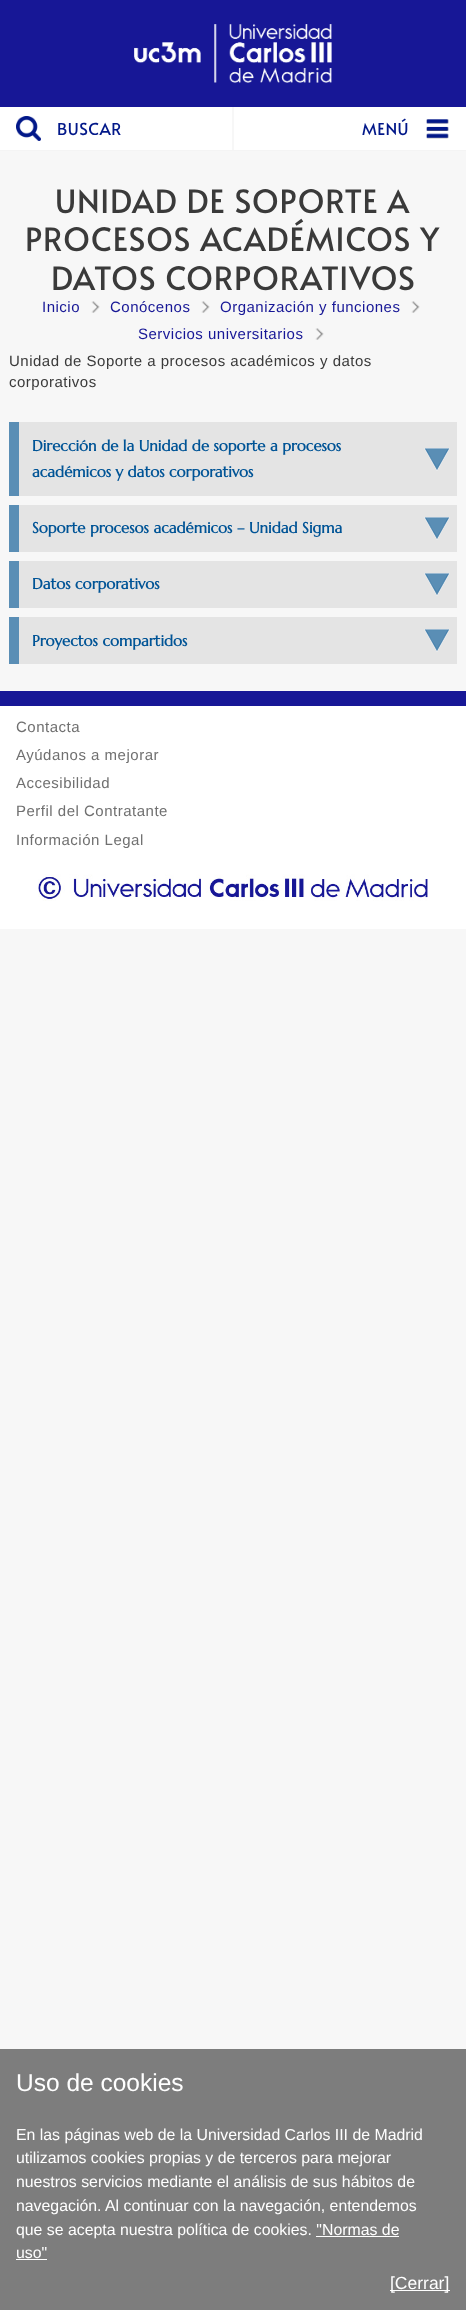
<!DOCTYPE html>
<meta charset="utf-8">
<style>body { margin: 0 } canvas { display: block }</style>
<canvas id="canvas" width="466" height="2310"></canvas>
<script type="module">
  const canvas = document.getElementById("canvas");
  const g = canvas.getContext("2d");
  g.miterLimit = 4;
  g.fontKerning = "normal";
  function drawText(s, x, y, [font, color]) {
    g.font = font;
    g.fillStyle = color;
    g.fillText(s, x, y);
  }
  function fillBox(x, y, w, h, color) {
    g.fillStyle = color;
    g.fillRect(x, y, w, h);
  }
  async function drawPicture(src, x, y, w, h) {
    const img = new Image();
    img.src = src;
    await img.decode();
    g.drawImage(img, x, y, w, h);
  }

  const s1 = ["16.5px Alata", "#021889"];
  const s2 = ["32px Alata", "#3A3A3A"];
  const s3 = ["15px Liberation Sans", "#171796"];
  const s4 = ["15px Liberation Sans", "#3A3A3A"];
  const s5 = ["bold 15px Marcellus", "#005496"];
  const s6 = ["15px Liberation Sans", "#707070"];
  const s7 = ["24.5px Liberation Sans", "#FFFFFF"];
  const s8 = ["15.85px Liberation Sans", "#FFFFFF"];
  const s9 = ["17.5px Liberation Sans", "#FFFFFF"];

  fillBox(0, 0, 466, 2310, "#F7F7F7");
  fillBox(0, 0, 466, 107, "#171796");
  await drawPicture("pic1.png", 134, 24, 198, 59);
  fillBox(0, 107, 466, 43, "#FFFFFF");
  fillBox(0, 150, 466, 1, "#F4F4F4");
  fillBox(232, 107, 2, 43, "#F7F7F7");
  await drawPicture("pic2.png", 16, 116, 25, 25);
  g.letterSpacing = "0.5px";
  drawText("BUSCAR", 57, 135, s1);
  drawText("MENÚ", 362, 135, s1);
  await drawPicture("pic3.png", 426, 119, 23, 20);
  g.letterSpacing = "1px";
  drawText("UNIDAD DE SOPORTE A", 55, 213, s2);
  drawText("PROCESOS ACADÉMICOS Y", 25, 251, s2);
  drawText("DATOS CORPORATIVOS", 51, 290, s2);
  g.letterSpacing = "0.5px";
  drawText("Inicio", 42, 312, s3);
  await drawPicture("pic4.png", 91, 301, 9, 12);
  drawText("Conócenos", 110, 312, s3);
  await drawPicture("pic5.png", 201, 301, 9, 12);
  drawText("Organización y funciones", 220, 312, s3);
  await drawPicture("pic5.png", 411, 301, 9, 12);
  drawText("Servicios universitarios", 138, 339, s3);
  await drawPicture("pic5.png", 315, 328, 9, 12);
  drawText("Unidad de Soporte a procesos académicos y datos", 9, 366, s4);
  drawText("corporativos", 9, 387, s4);
  fillBox(19, 422, 438, 74, "#E4E4E4");
  await drawPicture("pic6.png", 9, 422, 441, 74);
  g.letterSpacing = "0px";
  drawText("Dirección de la Unidad de soporte a procesos", 32, 451, s5);
  drawText("académicos y datos corporativos", 32, 477, s5);
  fillBox(19, 505, 438, 47, "#E4E4E4");
  await drawPicture("pic7.png", 9, 505, 441, 47);
  drawText("Soporte procesos académicos – Unidad Sigma", 32, 533, s5);
  fillBox(19, 561, 438, 47, "#E4E4E4");
  await drawPicture("pic7.png", 9, 561, 441, 47);
  drawText("Datos corporativos", 32, 589, s5);
  fillBox(19, 617, 438, 47, "#E4E4E4");
  await drawPicture("pic7.png", 9, 617, 441, 47);
  drawText("Proyectos compartidos", 32, 646, s5);
  fillBox(0, 706, 466, 223, "#FFFFFF");
  fillBox(0, 691, 466, 15, "#171796");
  g.letterSpacing = "0.5px";
  drawText("Contacta", 16, 732, s6);
  drawText("Ayúdanos a mejorar", 16, 760, s6);
  drawText("Accesibilidad", 16, 788, s6);
  drawText("Perfil del Contratante", 16, 816, s6);
  drawText("Información Legal", 16, 845, s6);
  await drawPicture("pic8.png", 38, 874, 390, 27);
  fillBox(0, 2049, 466, 261, "#7D7D7D");
  g.letterSpacing = "0px";
  drawText("Uso de cookies", 16, 2091, s7);
  drawText("En las páginas web de la Universidad Carlos III de Madrid", 16, 2140, s8);
  drawText("utilizamos cookies propias y de terceros para mejorar", 16, 2163, s8);
  drawText("nuestros servicios mediante el análisis de sus hábitos de", 16, 2187, s8);
  drawText("navegación. Al continuar con la navegación, entendemos", 16, 2211, s8);
  drawText("que se acepta nuestra política de cookies. \"Normas de", 16, 2235, s8);
  drawText("uso\"", 16, 2258, s8);
  fillBox(316, 2236, 83, 1, "#FFFFFF");
  fillBox(16, 2259, 31, 1, "#FFFFFF");
  fillBox(390, 2290, 60, 1, "#FFFFFF");
  drawText("[Cerrar]", 390, 2289, s9);
</script>
